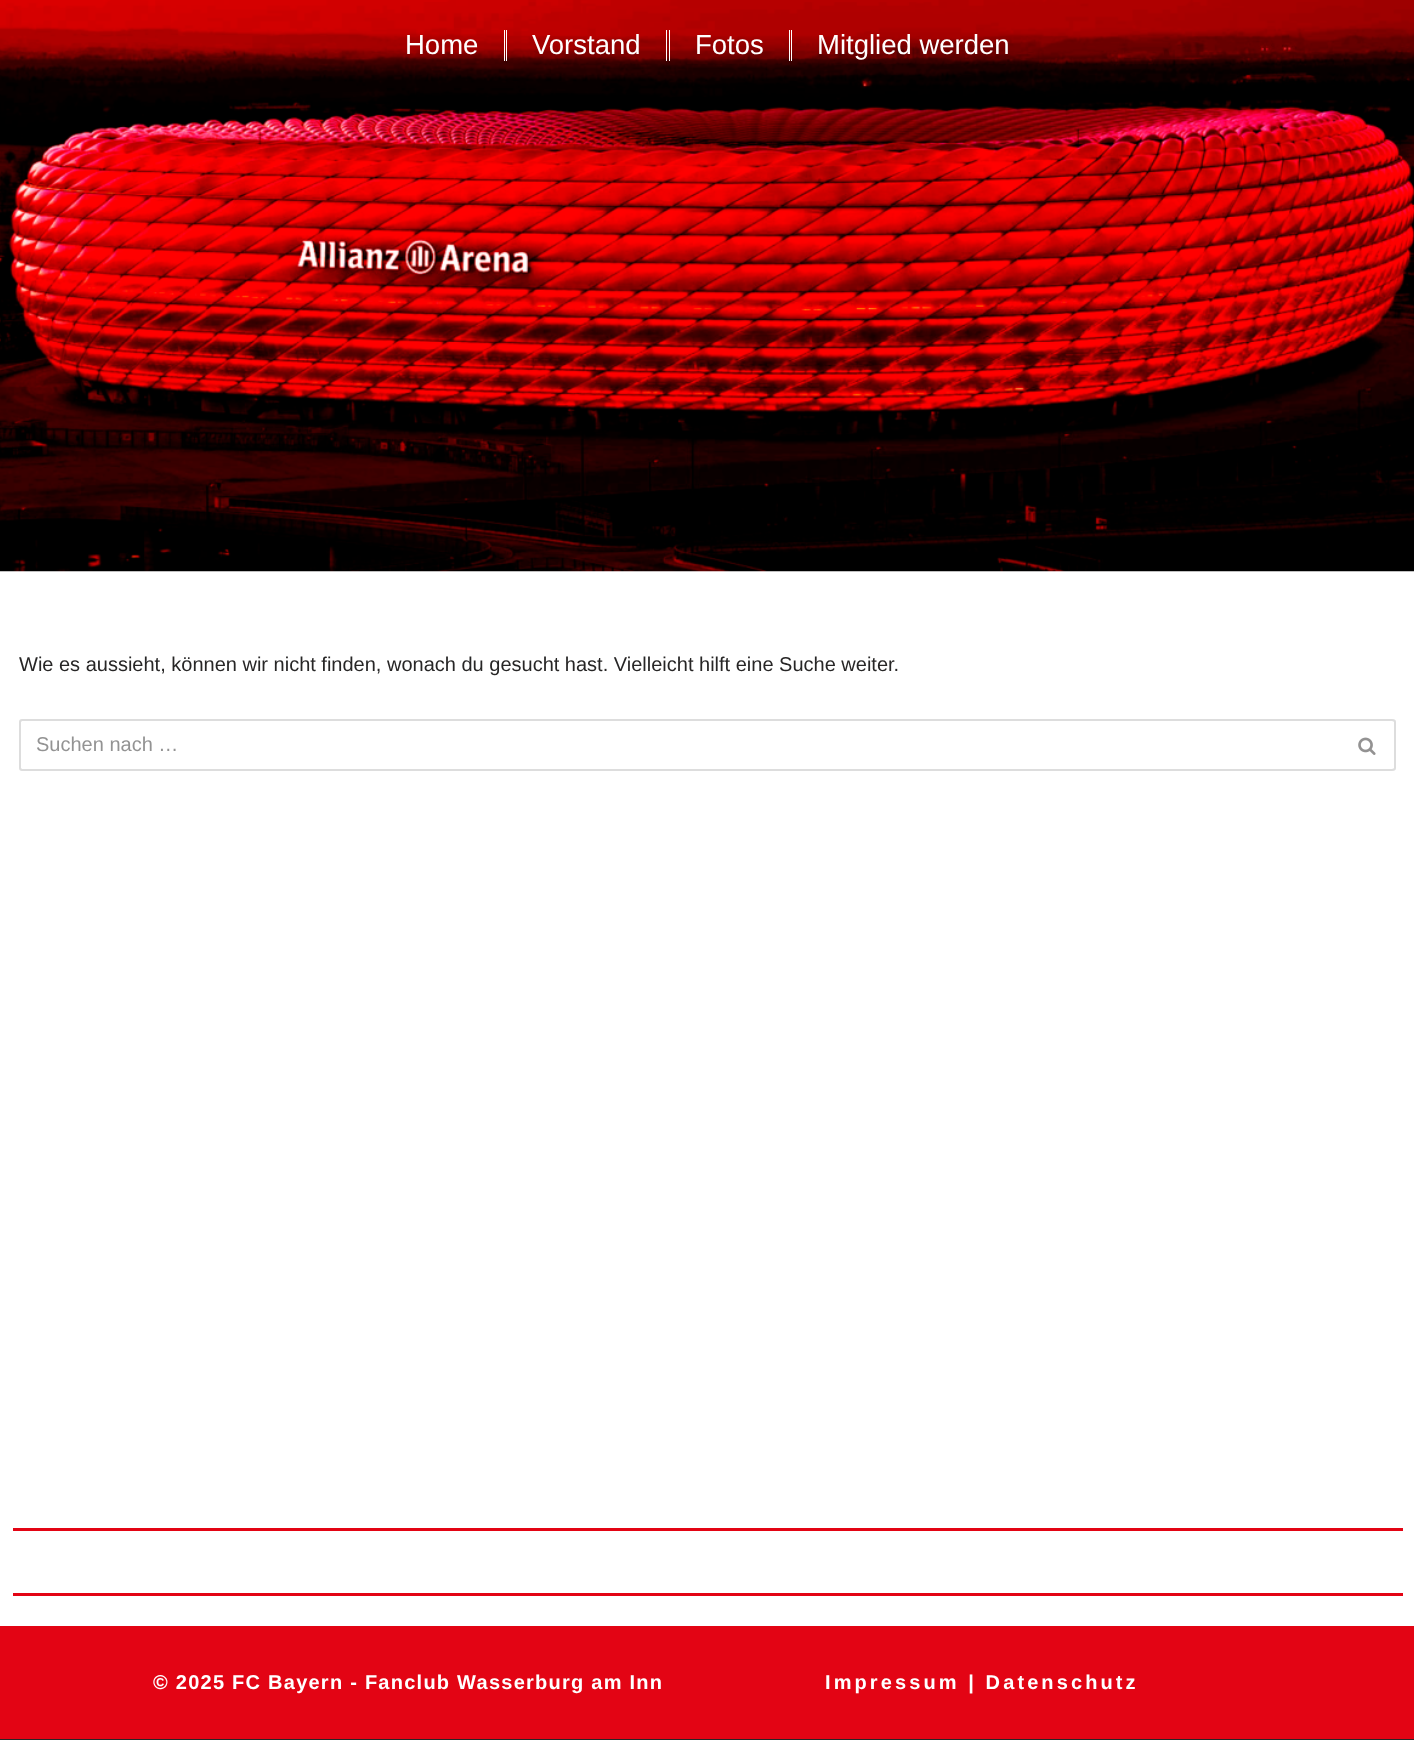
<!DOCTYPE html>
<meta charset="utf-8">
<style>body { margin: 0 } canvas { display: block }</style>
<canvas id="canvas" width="1414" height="1740"></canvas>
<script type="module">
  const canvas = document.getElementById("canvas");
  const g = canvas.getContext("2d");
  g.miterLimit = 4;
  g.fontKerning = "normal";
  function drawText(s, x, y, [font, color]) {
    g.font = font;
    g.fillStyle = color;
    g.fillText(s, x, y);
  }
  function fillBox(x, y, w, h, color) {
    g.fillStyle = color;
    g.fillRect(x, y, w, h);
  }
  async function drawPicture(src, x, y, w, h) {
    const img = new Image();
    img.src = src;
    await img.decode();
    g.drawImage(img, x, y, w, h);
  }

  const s1 = ["27.5px Liberation Sans", "#FFFFFF"];
  const s2 = ["20px Liberation Sans", "#272626"];
  const s3 = ["20px Liberation Sans", "#939393"];
  const s4 = ["bold 20px Liberation Sans", "#FFFFFF"];

  fillBox(0, 0, 1414, 1740, "#FFFFFF");
  await drawPicture("pic1.png", 0, 0, 1414, 572);
  drawText("Home", 405, 54, s1);
  fillBox(504, 30, 1, 31, "#FFFFFF");
  fillBox(506, 30, 1, 31, "#FFFFFF");
  drawText("Vorstand", 532, 54, s1);
  fillBox(666, 30, 1, 31, "#FFFFFF");
  fillBox(669, 30, 1, 31, "#FFFFFF");
  drawText("Fotos", 695, 54, s1);
  fillBox(789, 30, 1, 31, "#FFFFFF");
  fillBox(791, 30, 1, 31, "#FFFFFF");
  drawText("Mitglied werden", 817, 54, s1);
  drawText("Wie es aussieht, können wir nicht finden, wonach du gesucht hast. Vielleicht hilft eine Suche weiter.", 19, 671, s2);
  g.fillStyle = "#DDDDDD";
  g.beginPath();
  g.moveTo(22, 719);
  g.lineTo(1340, 719);
  g.lineTo(1340, 771);
  g.lineTo(22, 771);
  g.bezierCurveTo(20, 771, 19, 770, 19, 768);
  g.lineTo(19, 722);
  g.bezierCurveTo(19, 720, 20, 719, 22, 719);
  g.closePath();
  g.moveTo(22, 721);
  g.lineTo(1340, 721);
  g.lineTo(1340, 769);
  g.lineTo(22, 769);
  g.bezierCurveTo(22, 769, 21, 768, 21, 768);
  g.lineTo(21, 722);
  g.bezierCurveTo(21, 722, 22, 721, 22, 721);
  g.closePath();
  g.fill("evenodd");
  drawText("Suchen nach …", 36, 751, s3);
  g.fillStyle = "#DDDDDD";
  g.beginPath();
  g.moveTo(1340, 719);
  g.lineTo(1392, 719);
  g.bezierCurveTo(1395, 719, 1396, 720, 1396, 722);
  g.lineTo(1396, 768);
  g.bezierCurveTo(1396, 770, 1395, 771, 1392, 771);
  g.lineTo(1340, 771);
  g.closePath();
  g.moveTo(1340, 721);
  g.lineTo(1392, 721);
  g.bezierCurveTo(1393, 721, 1394, 722, 1394, 722);
  g.lineTo(1394, 768);
  g.bezierCurveTo(1394, 768, 1393, 769, 1392, 769);
  g.lineTo(1340, 769);
  g.closePath();
  g.fill("evenodd");
  await drawPicture("pic2.png", 1358, 737, 18, 18);
  fillBox(13, 1528, 1390, 3, "#E30414");
  fillBox(13, 1593, 1390, 3, "#E30414");
  fillBox(0, 1626, 1414, 113, "#E30414");
  fillBox(0, 1739, 1414, 1, "#272626");
  g.letterSpacing = "1.25px";
  drawText("© 2025 FC Bayern - Fanclub Wasserburg am Inn", 153, 1689, s4);
  g.letterSpacing = "3.1px";
  drawText("Impressum | Datenschutz", 825, 1689, s4);
</script>
